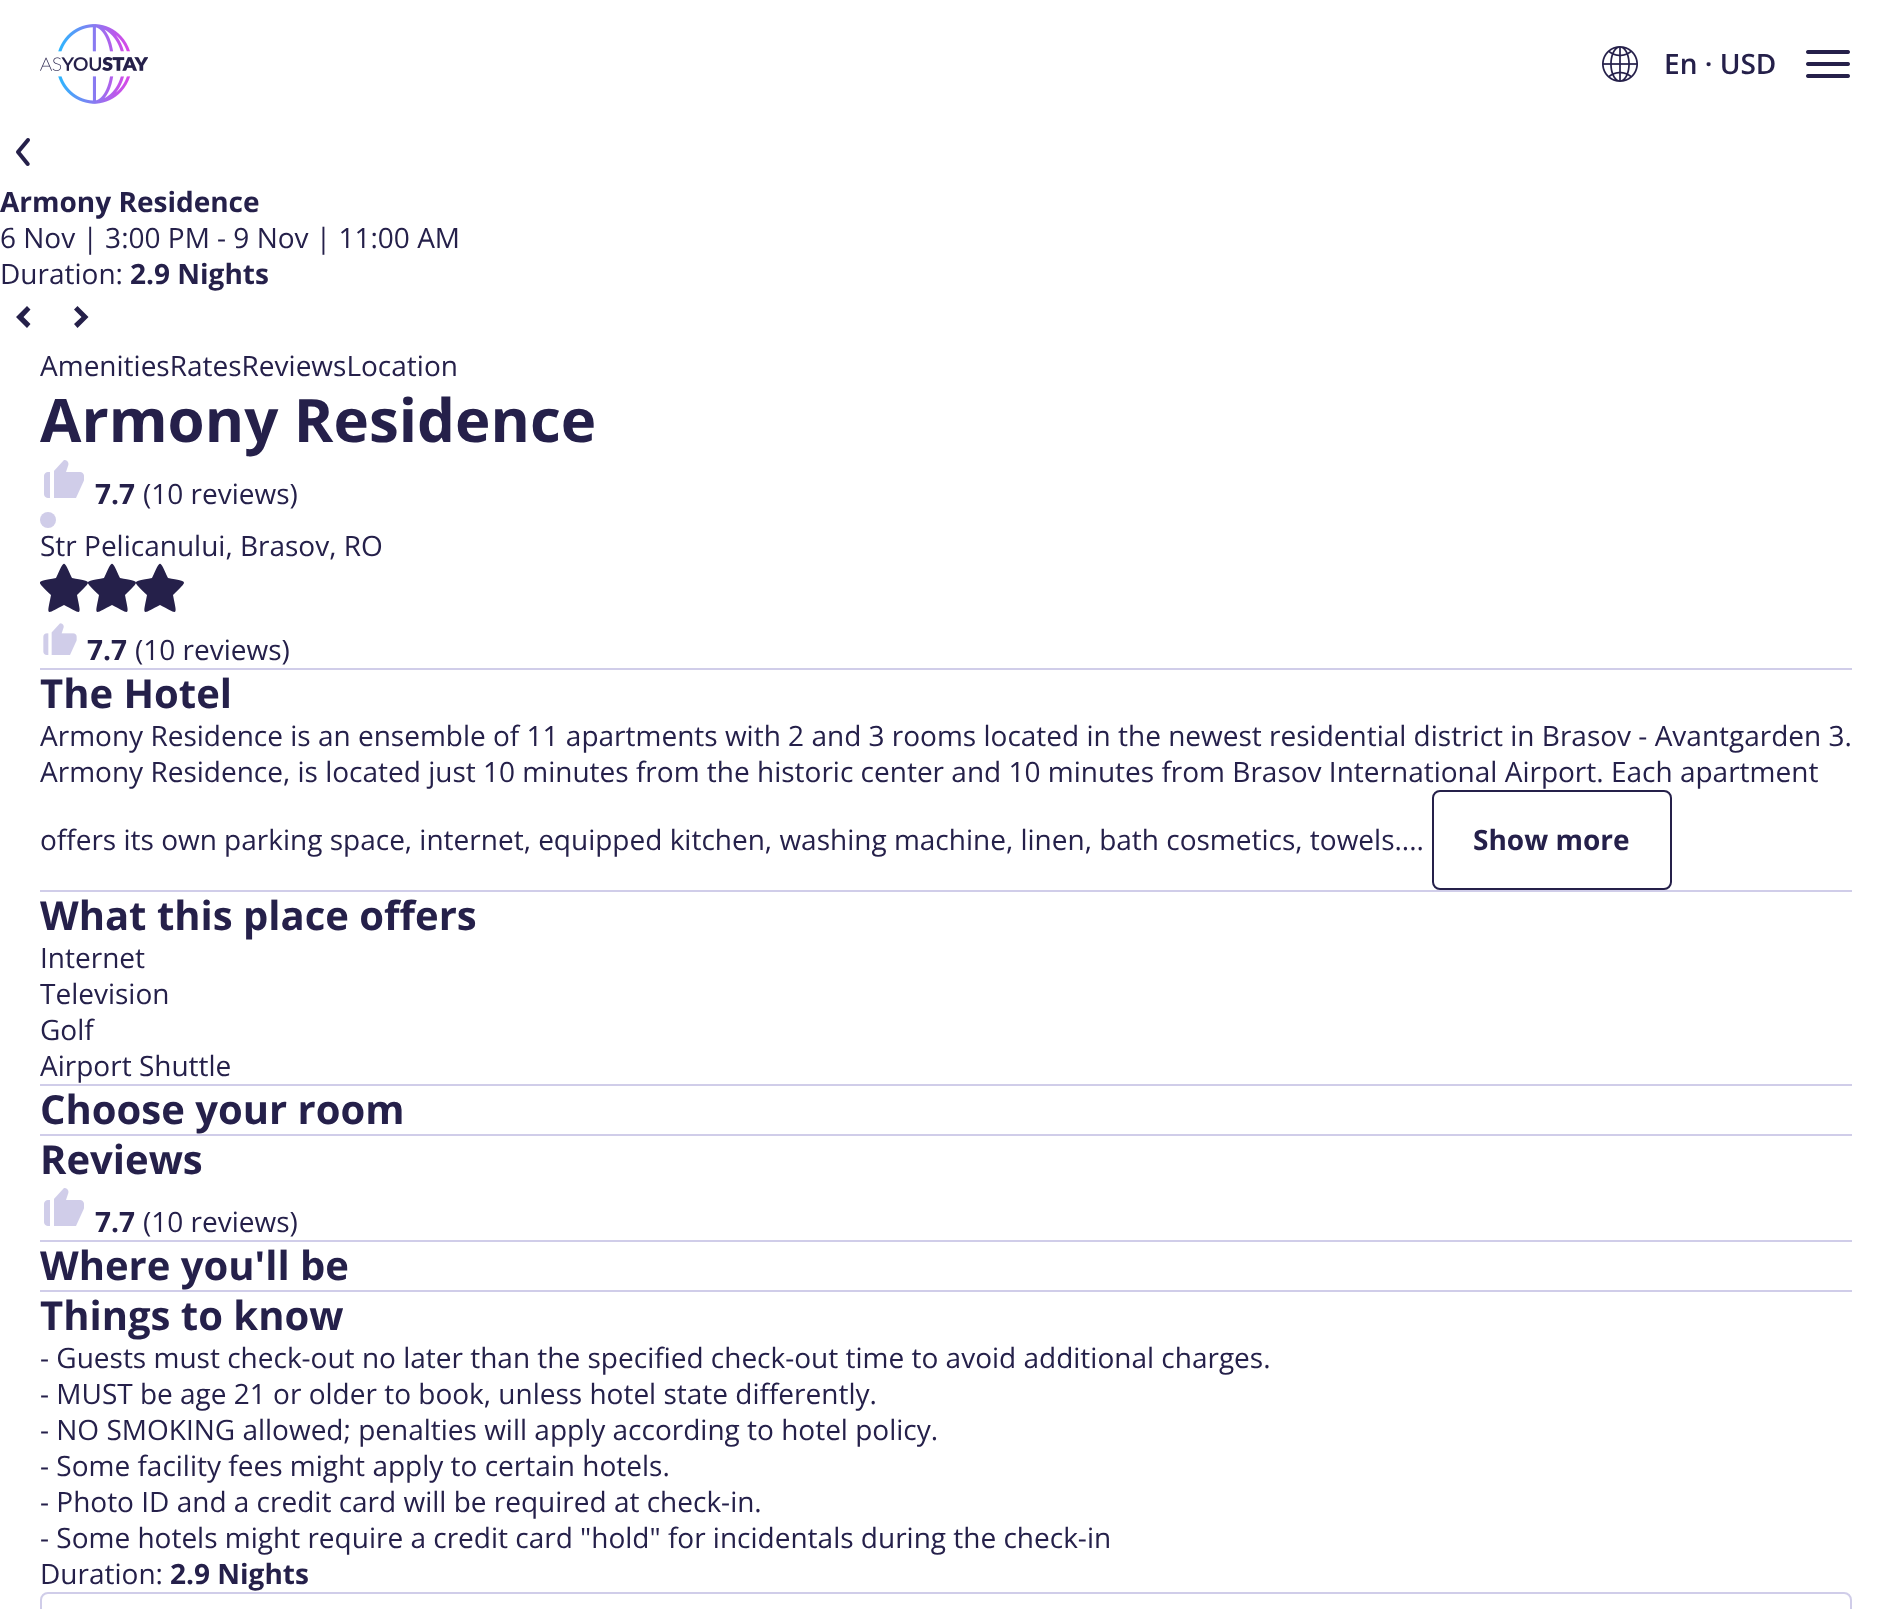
<!DOCTYPE html>
<meta charset="utf-8">
<style>body { margin: 0 } canvas { display: block }</style>
<canvas id="canvas" width="1891" height="1609"></canvas>
<script type="module">
  const canvas = document.getElementById("canvas");
  const g = canvas.getContext("2d");
  g.miterLimit = 4;
  g.fontKerning = "normal";
  function drawText(s, x, y, [font, color]) {
    g.font = font;
    g.fillStyle = color;
    g.fillText(s, x, y);
  }
  function fillBox(x, y, w, h, color) {
    g.fillStyle = color;
    g.fillRect(x, y, w, h);
  }
  async function drawPicture(src, x, y, w, h) {
    const img = new Image();
    img.src = src;
    await img.decode();
    g.drawImage(img, x, y, w, h);
  }

  const s1 = ["600 28px Open Sans", "#25204A"];
  const s2 = ["bold 28px Open Sans", "#25204A"];
  const s3 = ["28px Open Sans", "#25204A"];
  const s4 = ["bold 60px Open Sans", "#25204A"];
  const s5 = ["bold 40px Open Sans", "#25204A"];

  fillBox(0, 0, 1891, 1609, "#FFFFFF");
  await drawPicture("pic1.png", 40, 24, 108, 80);
  await drawPicture("pic2.png", 1602, 46, 36, 36);
  drawText("En · USD", 1664, 74, s1);
  await drawPicture("pic3.png", 1806, 50, 44, 28);
  await drawPicture("pic4.png", 16, 138, 14, 28);
  drawText("Armony Residence", 0, 212, s2);
  drawText("6 Nov | 3:00 PM - 9 Nov | 11:00 AM", 0, 248, s3);
  drawText("Duration:", 0, 284, s3);
  drawText("2.9 Nights", 130, 284, s2);
  g.beginPath();
  g.moveTo(19.5, 313.5);
  g.lineTo(16, 317);
  g.lineTo(27, 328);
  g.lineTo(30.5, 324);
  g.lineTo(23.5, 317);
  g.lineTo(30.5, 309.5);
  g.lineTo(27, 306);
  g.closePath();
  g.fill();
  g.beginPath();
  g.moveTo(81.5, 317);
  g.lineTo(74, 309.5);
  g.lineTo(77.5, 306);
  g.lineTo(88.5, 317);
  g.lineTo(77.5, 328);
  g.lineTo(74, 324);
  g.closePath();
  g.fill();
  drawText("AmenitiesRatesReviewsLocation", 40, 376, s3);
  drawText("Armony Residence", 40, 442, s4);
  await drawPicture("pic5.png", 44, 460, 40, 38);
  drawText("7.7", 95, 504, s2);
  drawText("(10 reviews)", 143, 504, s3);
  g.fillStyle = "#D0CDE9";
  g.beginPath();
  g.arc(48, 520, 8, 0, Math.PI * 2);
  g.fill();
  drawText("Str Pelicanului, Brasov, RO", 40, 556, s3);
  g.beginPath();
  g.moveTo(56, 578);
  g.bezierCurveTo(65, 559, 63, 559, 72, 578);
  g.bezierCurveTo(93, 582, 92, 580, 77, 595);
  g.bezierCurveTo(81, 616, 83, 615, 64, 605);
  g.bezierCurveTo(45, 615, 47, 616, 51, 595);
  g.bezierCurveTo(36, 580, 35, 582, 56, 578);
  g.closePath();
  g.fill();
  g.beginPath();
  g.moveTo(104, 578);
  g.bezierCurveTo(113, 559, 111, 559, 120, 578);
  g.bezierCurveTo(141, 582, 140, 580, 125, 595);
  g.bezierCurveTo(129, 616, 131, 615, 112, 605);
  g.bezierCurveTo(93, 615, 95, 616, 99, 595);
  g.bezierCurveTo(84, 580, 83, 582, 104, 578);
  g.closePath();
  g.fill();
  g.beginPath();
  g.moveTo(152, 578);
  g.bezierCurveTo(161, 559, 159, 559, 168, 578);
  g.bezierCurveTo(189, 582, 188, 580, 173, 595);
  g.bezierCurveTo(177, 616, 179, 615, 160, 605);
  g.bezierCurveTo(141, 615, 143, 616, 147, 595);
  g.bezierCurveTo(132, 580, 131, 582, 152, 578);
  g.closePath();
  g.fill();
  await drawPicture("pic6.png", 43, 623, 34, 32);
  drawText("7.7", 87, 660, s2);
  drawText("(10 reviews)", 135, 660, s3);
  fillBox(40, 668, 1812, 2, "#D0CDE9");
  drawText("The Hotel", 40, 708, s5);
  drawText("Armony Residence is an ensemble of 11 apartments with 2 and 3 rooms located in the newest residential district in Brasov - Avantgarden 3.", 40, 746, s3);
  drawText("Armony Residence, is located just 10 minutes from the historic center and 10 minutes from Brasov International Airport. Each apartment", 40, 782, s3);
  drawText("offers its own parking space, internet, equipped kitchen, washing machine, linen, bath cosmetics, towels....", 40, 850, s3);
  g.beginPath();
  g.roundRect(1433, 791, 238, 98, 7);
  g.strokeStyle = "#25204A";
  g.lineWidth = 2;
  g.stroke();
  drawText("Show more", 1473, 850, s2);
  fillBox(40, 890, 1812, 2, "#D0CDE9");
  drawText("What this place offers", 40, 930, s5);
  drawText("Internet", 40, 968, s3);
  drawText("Television", 40, 1004, s3);
  drawText("Golf", 40, 1040, s3);
  drawText("Airport Shuttle", 40, 1076, s3);
  fillBox(40, 1084, 1812, 2, "#D0CDE9");
  drawText("Choose your room", 40, 1124, s5);
  fillBox(40, 1134, 1812, 2, "#D0CDE9");
  drawText("Reviews", 40, 1174, s5);
  await drawPicture("pic5.png", 44, 1188, 40, 38);
  drawText("7.7", 95, 1232, s2);
  drawText("(10 reviews)", 143, 1232, s3);
  fillBox(40, 1240, 1812, 2, "#D0CDE9");
  drawText("Where you'll be", 40, 1280, s5);
  fillBox(40, 1290, 1812, 2, "#D0CDE9");
  drawText("Things to know", 40, 1330, s5);
  drawText("- Guests must check-out no later than the specified check-out time to avoid additional charges.", 40, 1368, s3);
  drawText("- MUST be age 21 or older to book, unless hotel state differently.", 40, 1404, s3);
  drawText("- NO SMOKING allowed; penalties will apply according to hotel policy.", 40, 1440, s3);
  drawText("- Some facility fees might apply to certain hotels.", 40, 1476, s3);
  drawText("- Photo ID and a credit card will be required at check-in.", 40, 1512, s3);
  drawText("- Some hotels might require a credit card \"hold\" for incidentals during the check-in", 40, 1548, s3);
  drawText("Duration:", 40, 1584, s3);
  drawText("2.9 Nights", 170, 1584, s2);
  g.beginPath();
  g.roundRect(41, 1593, 1810, 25, 7);
  g.strokeStyle = "#D0CDE9";
  g.stroke();
</script>
